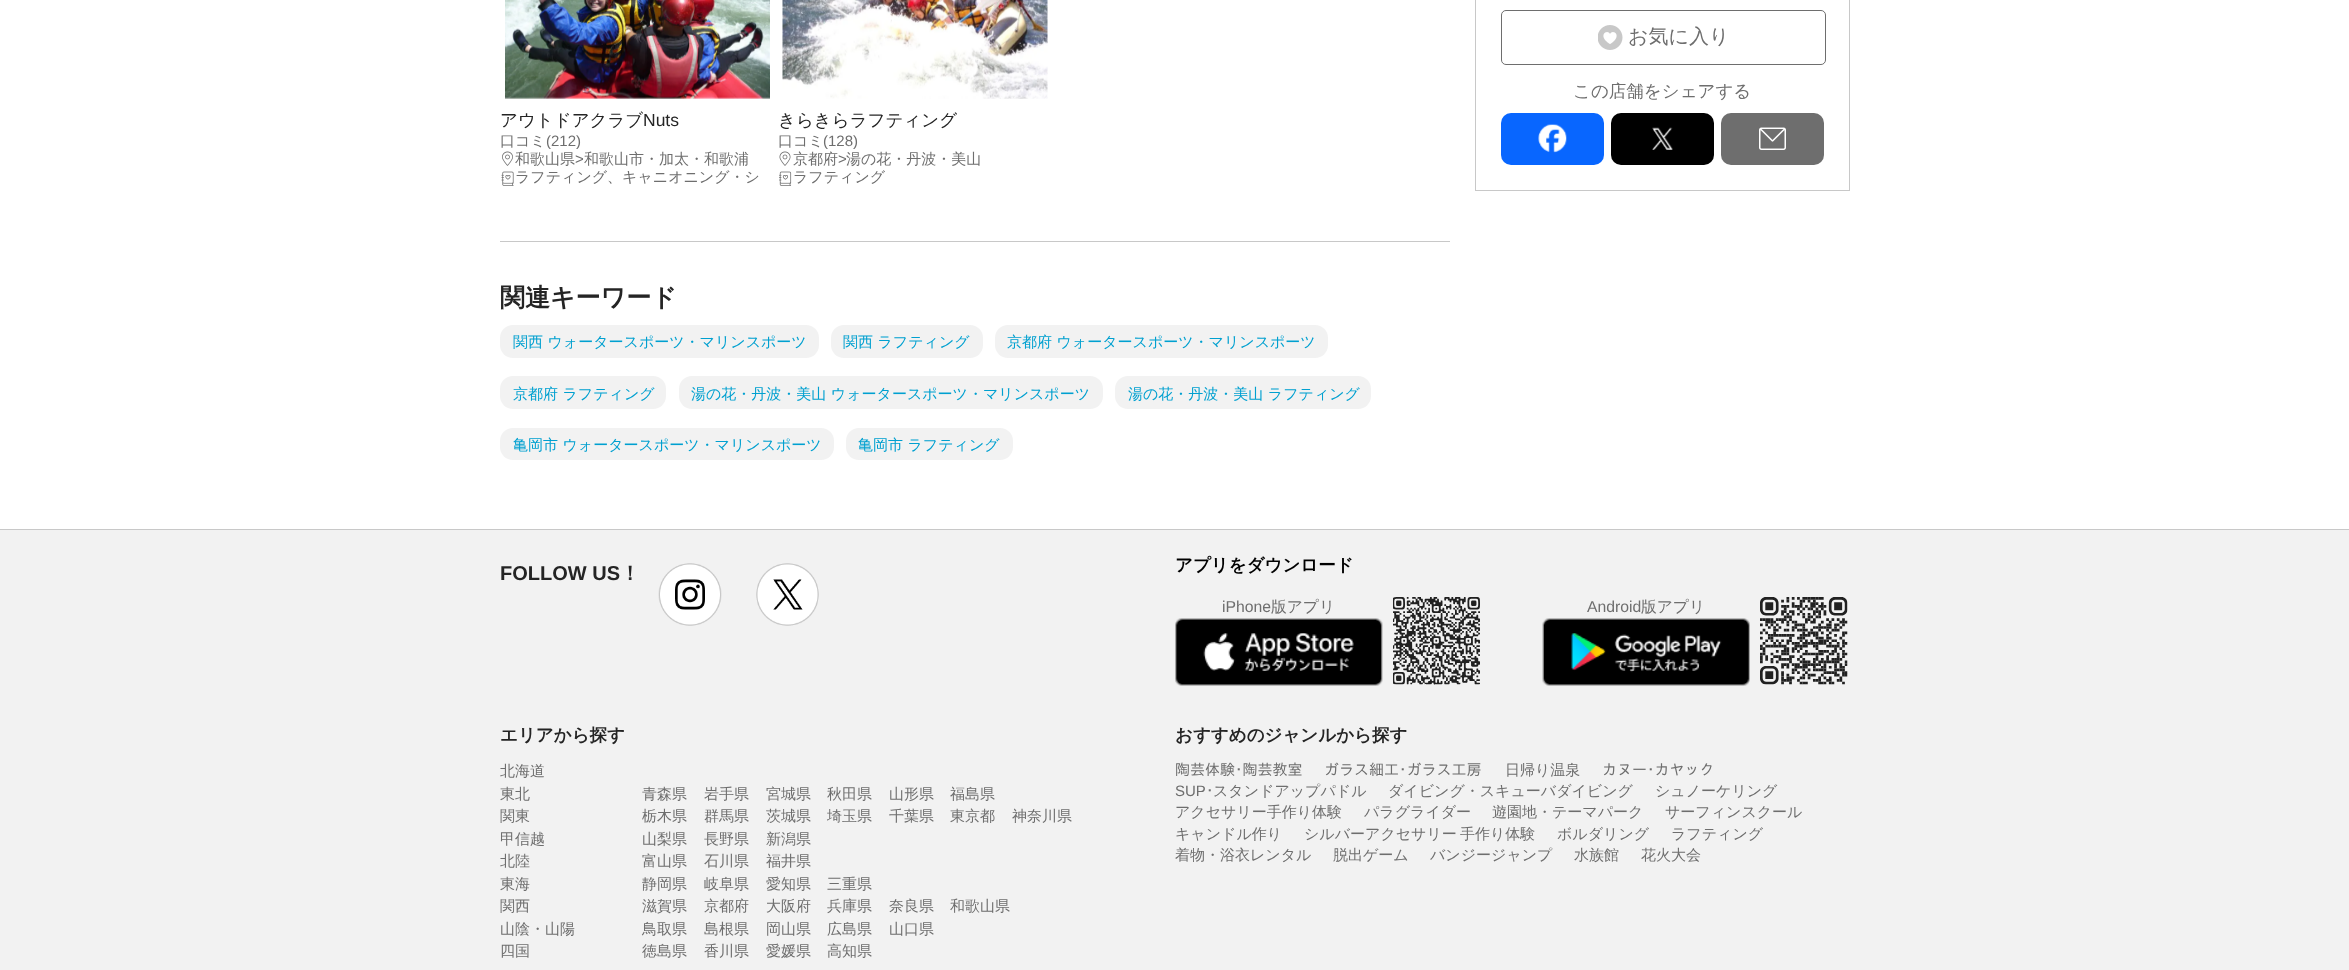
<!DOCTYPE html>
<meta charset="utf-8">
<style>body { margin: 0 } canvas { display: block }</style>
<canvas id="canvas" width="2349" height="970"></canvas>
<script type="module">
  const canvas = document.getElementById("canvas");
  const g = canvas.getContext("2d");
  g.miterLimit = 4;
  g.fontKerning = "normal";
  function drawText(s, x, y, [font, color]) {
    g.font = font;
    g.fillStyle = color;
    g.fillText(s, x, y);
  }
  function fillBox(x, y, w, h, color) {
    g.fillStyle = color;
    g.fillRect(x, y, w, h);
  }
  function fillRounded(x, y, w, h, r, color) {
    g.fillStyle = color;
    g.beginPath();
    g.roundRect(x, y, w, h, r);
    g.fill();
  }
  async function drawPicture(src, x, y, w, h) {
    const img = new Image();
    img.src = src;
    await img.decode();
    g.drawImage(img, x, y, w, h);
  }

  const s1 = ["500 20px WenQuanYi Zen Hei", "#6E6E6E"];
  const s2 = ["500 17.5px WenQuanYi Zen Hei", "#6E6E6E"];
  const s3 = ["500 17.5px WenQuanYi Zen Hei", "#242424"];
  const s4 = ["17.5px Liberation Sans", "#242424"];
  const s5 = ["500 15px WenQuanYi Zen Hei", "#6E6E6E"];
  const s6 = ["15px Liberation Sans", "#6E6E6E"];
  const s7 = ["bold 25px WenQuanYi Zen Hei", "#242424"];
  const s8 = ["500 15px WenQuanYi Zen Hei", "#00A0D0"];
  const s9 = ["bold 20px Liberation Sans", "#242424"];
  const s10 = ["bold 20px WenQuanYi Zen Hei", "#242424"];
  const s11 = ["bold 17.5px WenQuanYi Zen Hei", "#000000"];
  const s12 = ["15.75px Liberation Sans", "#6E6E6E"];
  const s13 = ["500 15.75px WenQuanYi Zen Hei", "#6E6E6E"];
  const s14 = ["bold 17.5px WenQuanYi Zen Hei", "#242424"];
  const s15 = ["15px IPAGothic", "#6E6E6E"];

  fillBox(0, 0, 2349, 970, "#FFFFFF");
  g.strokeStyle = "#C8C8C8";
  g.strokeRect(1475.5, -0.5, 374, 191);
  g.beginPath();
  g.roundRect(1501.5, 10.5, 324, 54, 4.5);
  g.strokeStyle = "#6E6E6E";
  g.stroke();
  await drawPicture("pic1.png", 1598, 25, 25, 25);
  drawText("お気に入り", 1628, 43, s1);
  drawText("この店舗をシェアする", 1573, 97, s2);
  fillRounded(1501, 113, 103, 52, 10, "#0866FF");
  await drawPicture("pic2.png", 1538, 124, 29, 29);
  fillRounded(1611, 113, 103, 52, 10, "#000000");
  await drawPicture("pic3.png", 1652, 127, 21, 23);
  fillRounded(1721, 113, 103, 52, 10, "#6E6E6E");
  await drawPicture("pic4.png", 1759, 127, 27, 23);
  await drawPicture("pic5.png", 505, 0, 265, 99);
  drawText("アウトドアクラブ", 500, 126, s3);
  drawText("Nuts", 643, 126, s4);
  drawText("口コミ", 500, 146, s5);
  drawText("(212)", 546, 146, s6);
  await drawPicture("pic6.png", 502, 151, 11, 15);
  drawText("和歌山県", 515, 164, s5);
  drawText(">", 575, 164, s6);
  drawText("和歌山市・加太・和歌浦", 584, 164, s5);
  await drawPicture("pic7.png", 501, 171, 13, 15);
  drawText("ラフティング、キャニオニング・シ", 515, 182, s5);
  await drawPicture("pic8.png", 782, 0, 266, 99);
  drawText("きらきらラフティング", 778, 126, s3);
  drawText("口コミ", 778, 146, s5);
  drawText("(128)", 823, 146, s6);
  await drawPicture("pic9.png", 779, 151, 12, 15);
  drawText("京都府", 793, 164, s5);
  drawText(">", 838, 164, s6);
  drawText("湯の花・丹波・美山", 846, 164, s5);
  await drawPicture("pic10.png", 779, 171, 13, 15);
  drawText("ラフティング", 793, 182, s5);
  fillBox(500, 241, 950, 1, "#C8C8C8");
  drawText("関連キーワード", 500, 306, s7);
  fillRounded(500, 325, 319, 33, 13, "#F2F2F2");
  drawText("関西 ウォータースポーツ・マリンスポーツ", 513, 347, s8);
  fillRounded(831, 325, 152, 33, 13, "#F2F2F2");
  drawText("関西 ラフティング", 843, 347, s8);
  fillRounded(995, 325, 333, 33, 13, "#F2F2F2");
  drawText("京都府 ウォータースポーツ・マリンスポーツ", 1007, 347, s8);
  fillRounded(500, 376, 166, 33, 13, "#F2F2F2");
  drawText("京都府 ラフティング", 513, 399, s8);
  fillRounded(679, 376, 424, 33, 13, "#F2F2F2");
  drawText("湯の花・丹波・美山 ウォータースポーツ・マリンスポーツ", 691, 399, s8);
  fillRounded(1115, 376, 256, 33, 13, "#F2F2F2");
  drawText("湯の花・丹波・美山 ラフティング", 1128, 399, s8);
  fillRounded(500, 428, 334, 32, 13, "#F2F2F2");
  drawText("亀岡市 ウォータースポーツ・マリンスポーツ", 513, 450, s8);
  fillRounded(846, 428, 167, 32, 13, "#F2F2F2");
  drawText("亀岡市 ラフティング", 858, 450, s8);
  fillBox(0, 530, 2349, 440, "#F2F2F2");
  fillBox(0, 529, 2349, 1, "#C8C8C8");
  drawText("FOLLOW US", 500, 580, s9);
  drawText("！", 620, 580, s10);
  await drawPicture("pic11.png", 658, 563, 64, 63);
  await drawPicture("pic12.png", 756, 563, 63, 63);
  drawText("アプリをダウンロード", 1175, 571, s11);
  drawText("iPhone", 1222, 612, s12);
  drawText("版アプリ", 1271, 612, s13);
  await drawPicture("pic13.png", 1175, 618, 208, 68);
  await drawPicture("pic14.png", 1393, 597, 87, 88);
  drawText("Android", 1587, 612, s12);
  drawText("版アプリ", 1641, 612, s13);
  await drawPicture("pic15.png", 1542, 618, 208, 68);
  await drawPicture("pic16.png", 1760, 597, 88, 88);
  drawText("エリアから探す", 500, 741, s14);
  drawText("北海道", 500, 776, s5);
  drawText("東北", 500, 799, s5);
  drawText("青森県", 642, 799, s5);
  drawText("岩手県", 704, 799, s5);
  drawText("宮城県", 766, 799, s5);
  drawText("秋田県", 827, 799, s5);
  drawText("山形県", 889, 799, s5);
  drawText("福島県", 950, 799, s5);
  drawText("関東", 500, 821, s5);
  drawText("栃木県", 642, 821, s5);
  drawText("群馬県", 704, 821, s5);
  drawText("茨城県", 766, 821, s5);
  drawText("埼玉県", 827, 821, s5);
  drawText("千葉県", 889, 821, s5);
  drawText("東京都", 950, 821, s5);
  drawText("神奈川県", 1012, 821, s5);
  drawText("甲信越", 500, 844, s5);
  drawText("山梨県", 642, 844, s5);
  drawText("長野県", 704, 844, s5);
  drawText("新潟県", 766, 844, s5);
  drawText("北陸", 500, 866, s5);
  drawText("富山県", 642, 866, s5);
  drawText("石川県", 704, 866, s5);
  drawText("福井県", 766, 866, s5);
  drawText("東海", 500, 889, s5);
  drawText("静岡県", 642, 889, s5);
  drawText("岐阜県", 704, 889, s5);
  drawText("愛知県", 766, 889, s5);
  drawText("三重県", 827, 889, s5);
  drawText("関西", 500, 911, s5);
  drawText("滋賀県", 642, 911, s5);
  drawText("京都府", 704, 911, s5);
  drawText("大阪府", 766, 911, s5);
  drawText("兵庫県", 827, 911, s5);
  drawText("奈良県", 889, 911, s5);
  drawText("和歌山県", 950, 911, s5);
  drawText("山陰・山陽", 500, 934, s5);
  drawText("鳥取県", 642, 934, s5);
  drawText("島根県", 704, 934, s5);
  drawText("岡山県", 766, 934, s5);
  drawText("広島県", 827, 934, s5);
  drawText("山口県", 889, 934, s5);
  drawText("四国", 500, 956, s5);
  drawText("徳島県", 642, 956, s5);
  drawText("香川県", 704, 956, s5);
  drawText("愛媛県", 766, 956, s5);
  drawText("高知県", 827, 956, s5);
  drawText("おすすめのジャンルから探す", 1175, 741, s14);
  drawText("陶芸体験･陶芸教室", 1175, 775, s15);
  drawText("ガラス細工･ガラス工房", 1324, 775, s15);
  drawText("日帰り温泉", 1505, 775, s5);
  drawText("カヌー･カヤック", 1602, 775, s15);
  drawText("SUP", 1175, 796, s6);
  drawText("･", 1206, 796, s15);
  drawText("スタンドアップパドル", 1213, 796, s5);
  drawText("ダイビング・スキューバダイビング", 1388, 796, s5);
  drawText("シュノーケリング", 1655, 796, s5);
  drawText("アクセサリー手作り体験", 1175, 817, s5);
  drawText("パラグライダー", 1364, 817, s5);
  drawText("遊園地・テーマパーク", 1492, 817, s5);
  drawText("サーフィンスクール", 1665, 817, s5);
  drawText("キャンドル作り", 1175, 839, s5);
  drawText("シルバーアクセサリー", 1304, 839, s5);
  drawText("手作り体験", 1460, 839, s5);
  drawText("ボルダリング", 1557, 839, s5);
  drawText("ラフティング", 1671, 839, s5);
  drawText("着物・浴衣レンタル", 1175, 860, s5);
  drawText("脱出ゲーム", 1333, 860, s5);
  drawText("バンジージャンプ", 1430, 860, s5);
  drawText("水族館", 1574, 860, s5);
  drawText("花火大会", 1641, 860, s5);
</script>
